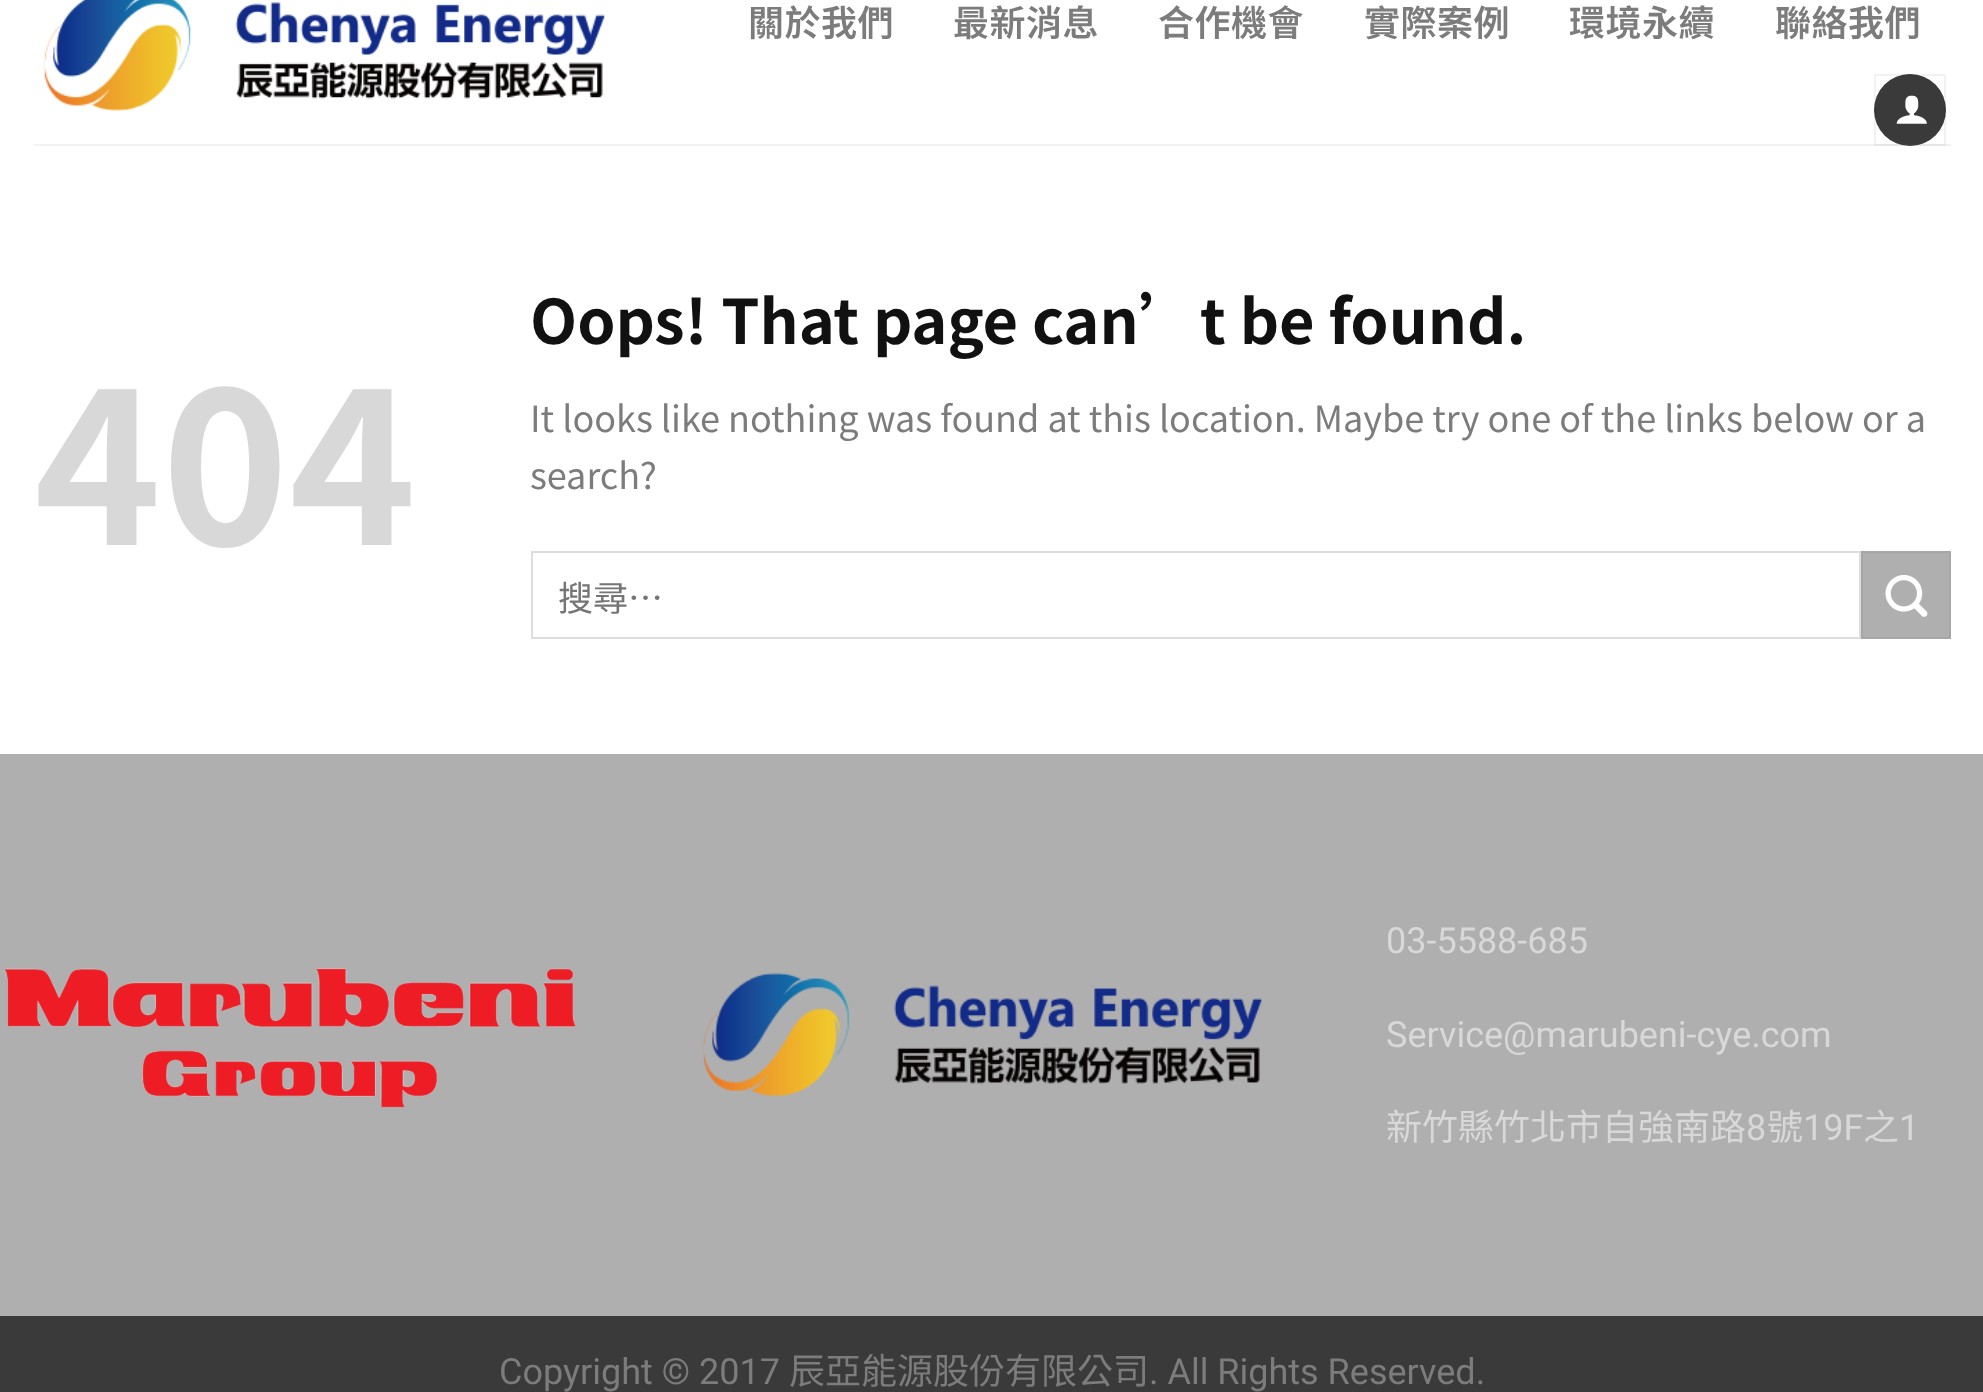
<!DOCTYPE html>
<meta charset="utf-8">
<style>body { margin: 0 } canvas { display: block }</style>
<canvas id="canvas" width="1983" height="1392"></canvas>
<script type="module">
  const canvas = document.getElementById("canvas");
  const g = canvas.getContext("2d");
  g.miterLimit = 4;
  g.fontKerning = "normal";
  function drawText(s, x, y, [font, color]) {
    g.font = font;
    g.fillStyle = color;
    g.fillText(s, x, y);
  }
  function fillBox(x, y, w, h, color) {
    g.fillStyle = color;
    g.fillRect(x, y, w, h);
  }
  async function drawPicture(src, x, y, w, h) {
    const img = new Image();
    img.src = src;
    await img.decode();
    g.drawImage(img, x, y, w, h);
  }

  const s1 = ["600 36px Noto Sans TC", "#7C7C7C"];
  const s2 = ["bold 216px Noto Sans TC", "#D8D8D8"];
  const s3 = ["bold 61.25px Noto Sans TC", "#111111"];
  const s4 = ["36px Noto Sans TC", "#7C7C7C"];
  const s5 = ["35px Noto Sans TC", "#757575"];
  const s6 = ["36px Roboto", "#D8D8D8"];
  const s7 = ["36px Noto Sans CJK TC", "#D8D8D8"];
  const s8 = ["36px Roboto", "#7C7C7C"];
  const s9 = ["36px Noto Sans CJK TC", "#7C7C7C"];

  fillBox(0, 0, 1983, 1392, "#FFFFFF");
  await drawPicture("pic1.png", 43, 0, 562, 112);
  g.letterSpacing = "0.5px";
  drawText("關於我們", 748, 36, s1);
  drawText("最新消息", 953, 36, s1);
  drawText("合作機會", 1158, 36, s1);
  drawText("實際案例", 1364, 36, s1);
  drawText("環境永續", 1569, 36, s1);
  drawText("聯絡我們", 1775, 36, s1);
  g.fillStyle = "#3A3A3A";
  g.beginPath();
  g.arc(1910, 110, 36, 0, Math.PI * 2);
  g.fill();
  g.strokeStyle = "rgba(0, 0, 0, 0.05)";
  g.lineWidth = 2;
  g.strokeRect(1875, 75, 70, 70);
  await drawPicture("pic2.png", 1896, 95, 31, 29);
  fillBox(34, 144, 1917, 2, "rgba(124, 124, 124, 0.1)");
  g.letterSpacing = "0px";
  drawText("404", 34, 545, s2);
  drawText("Oops! That page can’t be found.", 530, 344, s3);
  drawText("It looks like nothing was found at this location. Maybe try one of the links below or a", 530, 432, s4);
  drawText("search?", 530, 489, s4);
  g.strokeStyle = "#DDDDDD";
  g.strokeRect(532, 552, 1328, 86);
  drawText("搜尋…", 558, 611, s5);
  g.fillStyle = "#AFAFAF";
  g.beginPath();
  g.rect(1862, 552, 88, 86);
  g.fill();
  g.strokeStyle = "#A6A6A6";
  g.stroke();
  await drawPicture("pic3.png", 1885, 575, 43, 42);
  fillBox(0, 1316, 1983, 76, "#3A3A3A");
  fillBox(0, 754, 1983, 562, "#AFAFAF");
  await drawPicture("pic4.png", 4, 968, 572, 140);
  await drawPicture("pic5.png", 702, 973, 560, 124);
  drawText("03-5588-685", 1386, 953, s6);
  drawText("Service@marubeni-cye.com", 1386, 1047, s6);
  drawText("新竹縣竹北市自強南路", 1386, 1140, s7);
  drawText("8", 1746, 1140, s6);
  drawText("號", 1767, 1140, s7);
  drawText("19F", 1803, 1140, s6);
  drawText("之", 1863, 1140, s7);
  drawText("1", 1899, 1140, s6);
  drawText("Copyright © 2017", 499, 1384, s8);
  drawText("辰亞能源股份有限公司", 789, 1384, s9);
  drawText(". All Rights Reserved.", 1149, 1384, s8);
</script>
